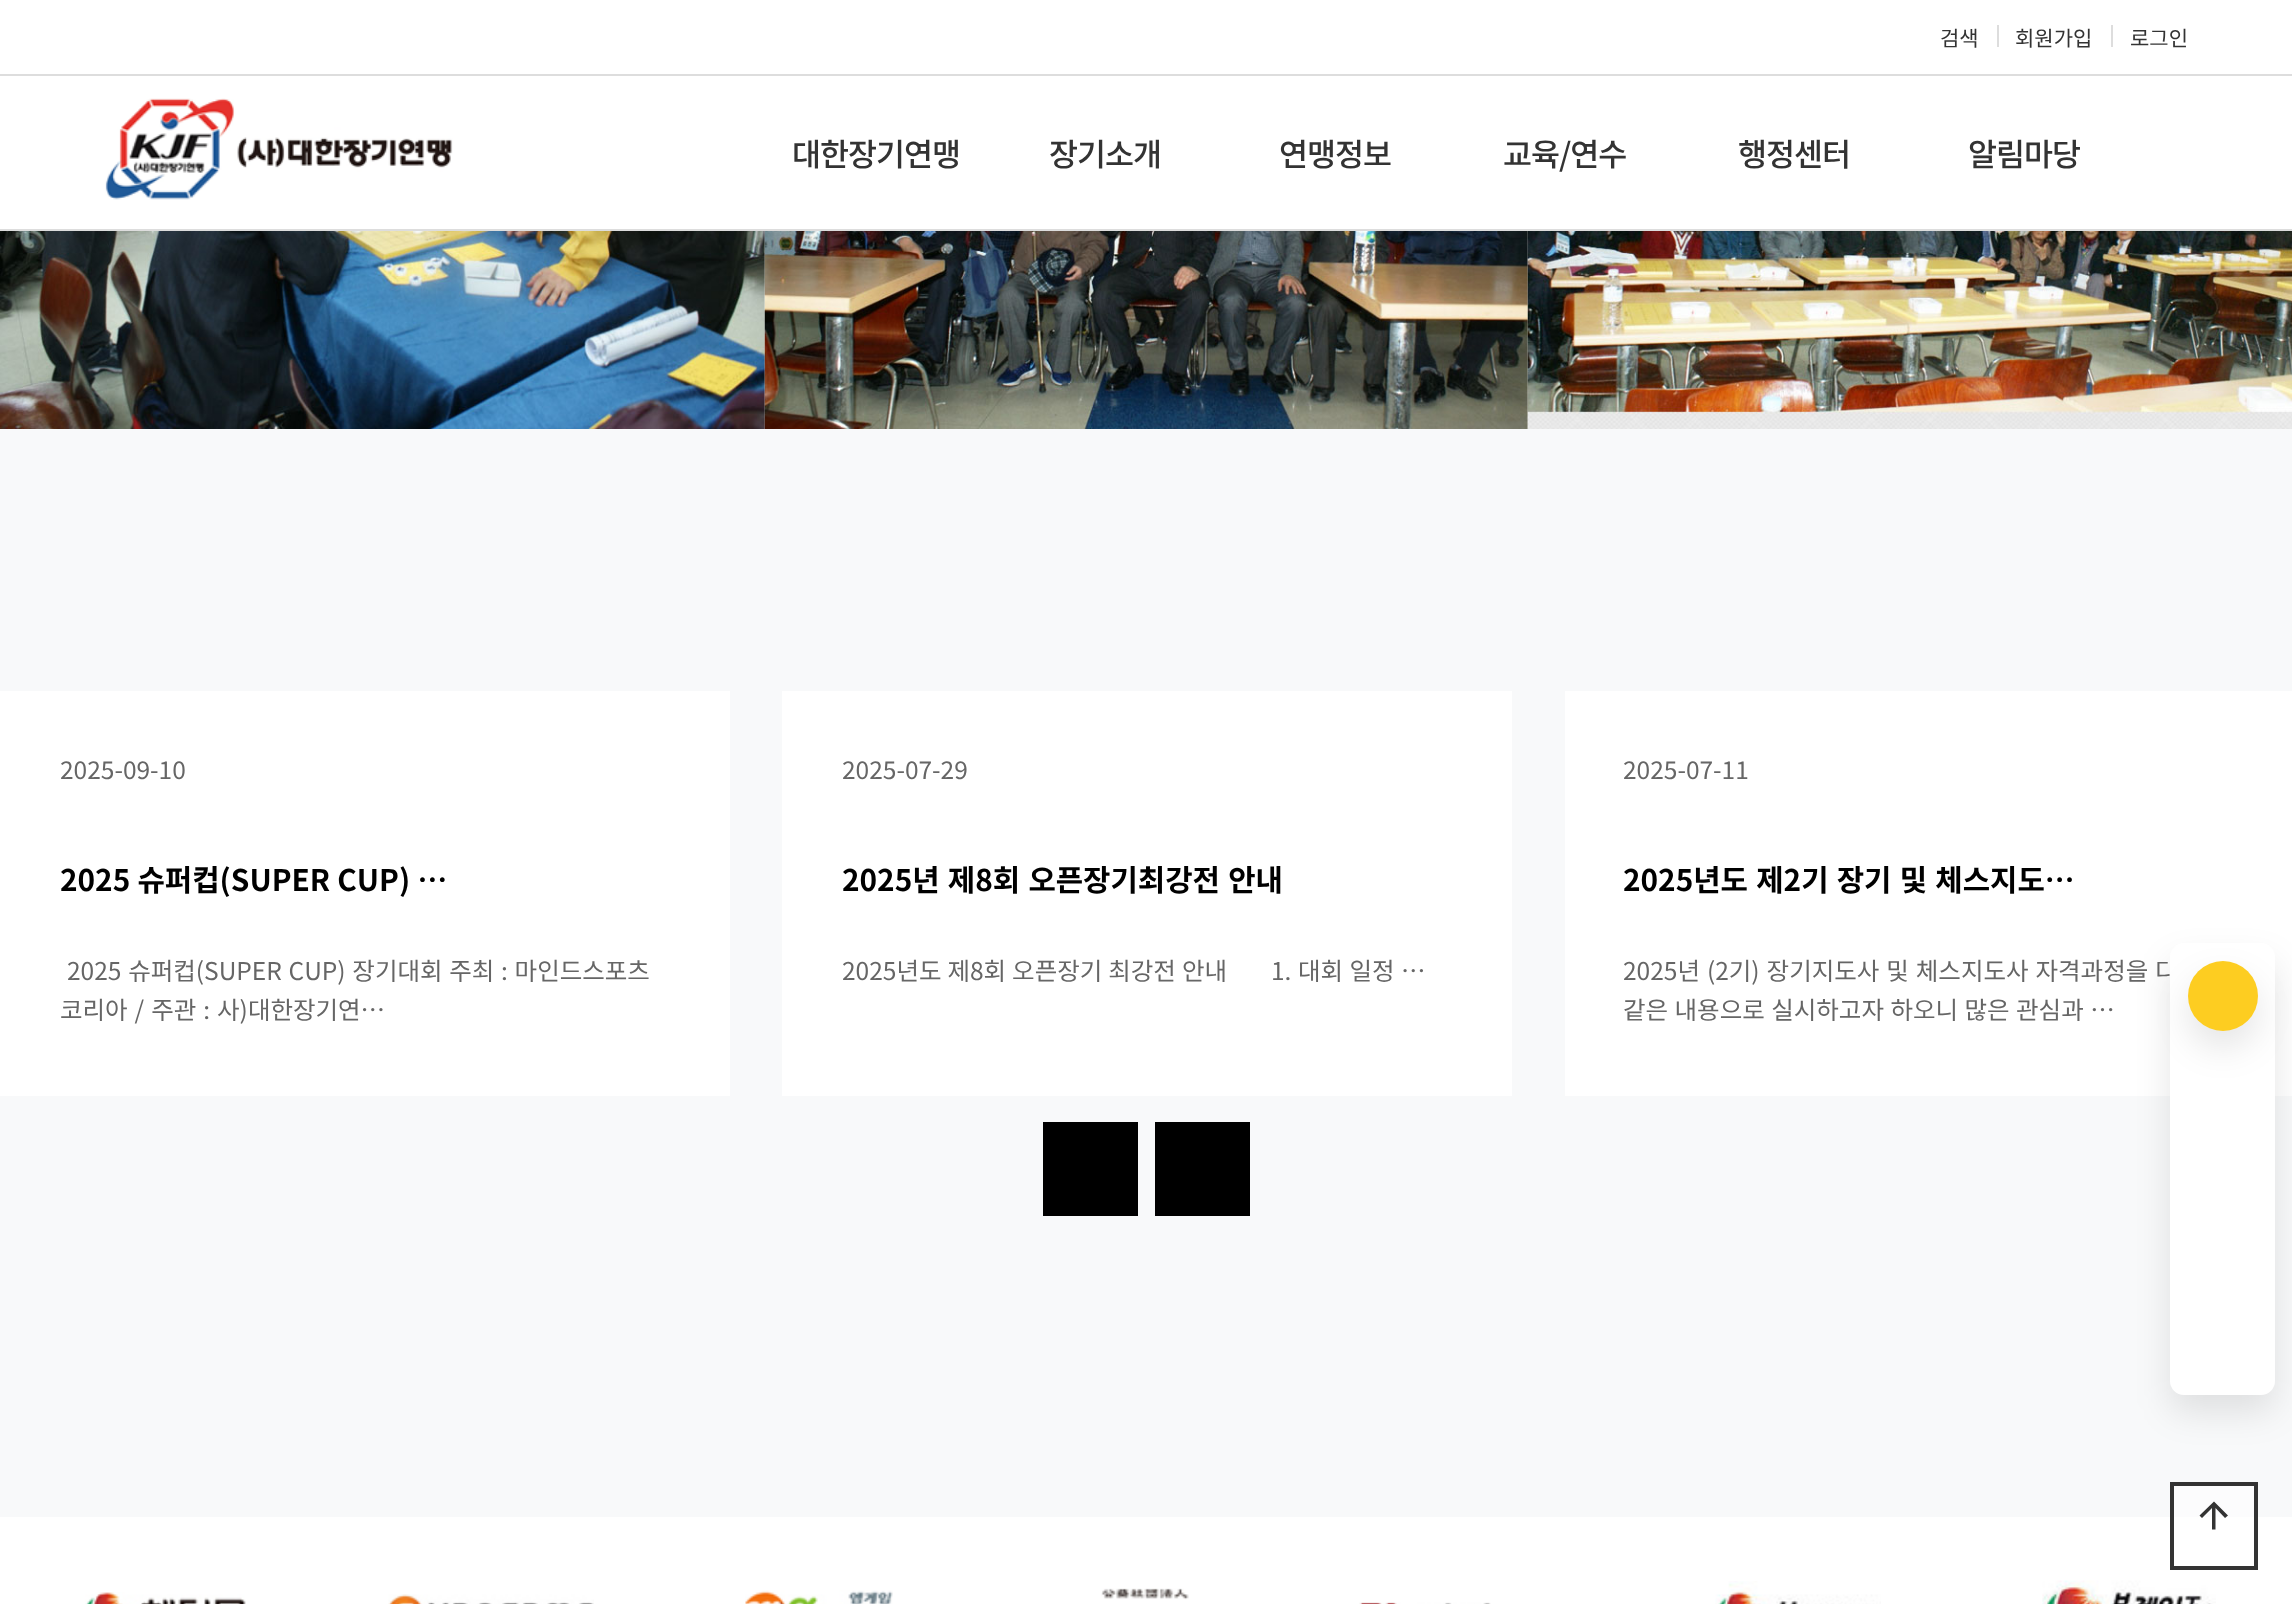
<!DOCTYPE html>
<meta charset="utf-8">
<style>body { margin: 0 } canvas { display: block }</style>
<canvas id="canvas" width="2292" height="1604"></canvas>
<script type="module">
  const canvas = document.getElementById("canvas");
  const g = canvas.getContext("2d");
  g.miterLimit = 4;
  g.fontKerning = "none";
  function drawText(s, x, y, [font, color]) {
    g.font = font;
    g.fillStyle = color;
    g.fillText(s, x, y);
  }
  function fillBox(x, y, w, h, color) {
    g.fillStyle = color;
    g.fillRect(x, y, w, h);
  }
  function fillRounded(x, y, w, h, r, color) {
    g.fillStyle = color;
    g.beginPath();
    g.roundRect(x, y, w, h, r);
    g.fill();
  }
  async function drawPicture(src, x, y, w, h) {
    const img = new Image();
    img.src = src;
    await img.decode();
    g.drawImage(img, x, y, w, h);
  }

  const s1 = ["21px Noto Sans KR", "#333333"];
  const s2 = ["500 31.5px Noto Sans KR", "#333333"];
  const s3 = ["24.5px Noto Sans KR", "#666666"];
  const s4 = ["bold 29.75px Noto Sans KR", "#000000"];

  fillBox(0, 0, 2292, 1604, "#FFFFFF");
  drawText("검색", 1940, 46, s1);
  fillBox(1997, 25, 2, 22, "#DDDDDD");
  drawText("회원가입", 2015, 46, s1);
  fillBox(2111, 25, 2, 22, "#DDDDDD");
  drawText("로그인", 2130, 46, s1);
  fillBox(0, 74, 2292, 2, "#DDDDDD");
  await drawPicture("pic1.png", 105, 98, 348, 102);
  g.letterSpacing = "-1px";
  drawText("대한장기연맹", 792, 166, s2);
  drawText("장기소개", 1049, 166, s2);
  drawText("연맹정보", 1279, 166, s2);
  drawText("교육/연수", 1503, 166, s2);
  drawText("행정센터", 1738, 166, s2);
  drawText("알림마당", 1968, 166, s2);
  fillBox(0, 229, 2292, 2, "#DDDDDD");
  await drawPicture("pic2.png", 0, 231, 765, 198);
  await drawPicture("pic3.png", 764, 231, 764, 198);
  await drawPicture("pic4.png", 1527, 231, 765, 198);
  fillBox(0, 429, 2292, 1088, "#F8F9FA");
  fillBox(2174, 1486, 80, 31, "#FCFCFD");
  fillBox(0, 691, 730, 405, "#FFFFFF");
  g.letterSpacing = "0px";
  drawText("2025-09-10", 60, 779, s3);
  g.wordSpacing = "0.5px";
  drawText("2025 슈퍼컵(SUPER CUP) …", 60, 891, s4);
  g.wordSpacing = "1.25px";
  drawText("2025 슈퍼컵(SUPER CUP) 장기대회 주최 : 마인드스포츠", 67, 980, s3);
  g.wordSpacing = "1.5px";
  drawText("코리아 / 주관 : 사)대한장기연…", 60, 1019, s3);
  fillBox(782, 691, 730, 405, "#FFFFFF");
  g.wordSpacing = "0px";
  drawText("2025-07-29", 842, 779, s3);
  g.wordSpacing = "1.5px";
  drawText("2025년 제8회 오픈장기최강전 안내", 842, 891, s4);
  g.wordSpacing = "0.5px";
  drawText("2025년도 제8회 오픈장기 최강전 안내", 842, 980, s3);
  g.wordSpacing = "1px";
  drawText("1. 대회 일정 …", 1271, 980, s3);
  fillBox(1565, 691, 727, 405, "#FFFFFF");
  g.wordSpacing = "0px";
  drawText("2025-07-11", 1623, 779, s3);
  g.wordSpacing = "1.5px";
  drawText("2025년도 제2기 장기 및 체스지도…", 1623, 891, s4);
  drawText("2025년 (2기) 장기지도사 및 체스지도사 자격과정을 다", 1623, 980, s3);
  g.wordSpacing = "1px";
  drawText("같은 내용으로 실시하고자 하오니 많은 관심과 …", 1623, 1019, s3);
  fillBox(1043, 1122, 95, 94, "#000000");
  fillBox(1155, 1122, 95, 94, "#000000");
  g.fillStyle = "rgba(0, 0, 0, 0.1)";
  g.filter = "blur(17.5px)";
  g.beginPath();
  g.roundRect(2170, 961, 105, 451, 14);
  g.fill();
  g.filter = "none";
  fillRounded(2170, 943, 105, 452, 14, "#FFFFFF");
  g.fillStyle = "rgba(0, 0, 0, 0.1)";
  g.filter = "blur(17.5px)";
  g.beginPath();
  g.roundRect(2188, 978, 70, 70, 35);
  g.fill();
  g.filter = "none";
  g.fillStyle = "#FDCD21";
  g.beginPath();
  g.arc(2223, 996, 35, 0, Math.PI * 2);
  g.fill();
  g.strokeStyle = "#333333";
  g.lineWidth = 4;
  g.strokeRect(2172, 1484, 84, 84);
  g.fillStyle = "#333333";
  g.beginPath();
  g.moveTo(2199.5, 1515.5);
  g.lineTo(2214, 1501.5);
  g.lineTo(2228, 1515.5);
  g.lineTo(2225, 1518);
  g.lineTo(2215.5, 1508);
  g.lineTo(2215.5, 1529.5);
  g.lineTo(2212, 1529.5);
  g.lineTo(2212, 1508);
  g.lineTo(2202, 1518);
  g.closePath();
  g.fill();
  await drawPicture("pic5.png", 85, 1592, 161, 12);
  await drawPicture("pic6.png", 388, 1594, 206, 10);
  await drawPicture("pic7.png", 745, 1590, 148, 14);
  await drawPicture("pic8.png", 1101, 1588, 88, 12);
  await drawPicture("pic9.png", 1359, 1602, 132, 2);
  await drawPicture("pic10.png", 1715, 1581, 166, 23);
  await drawPicture("pic11.png", 2042, 1580, 174, 24);
</script>
